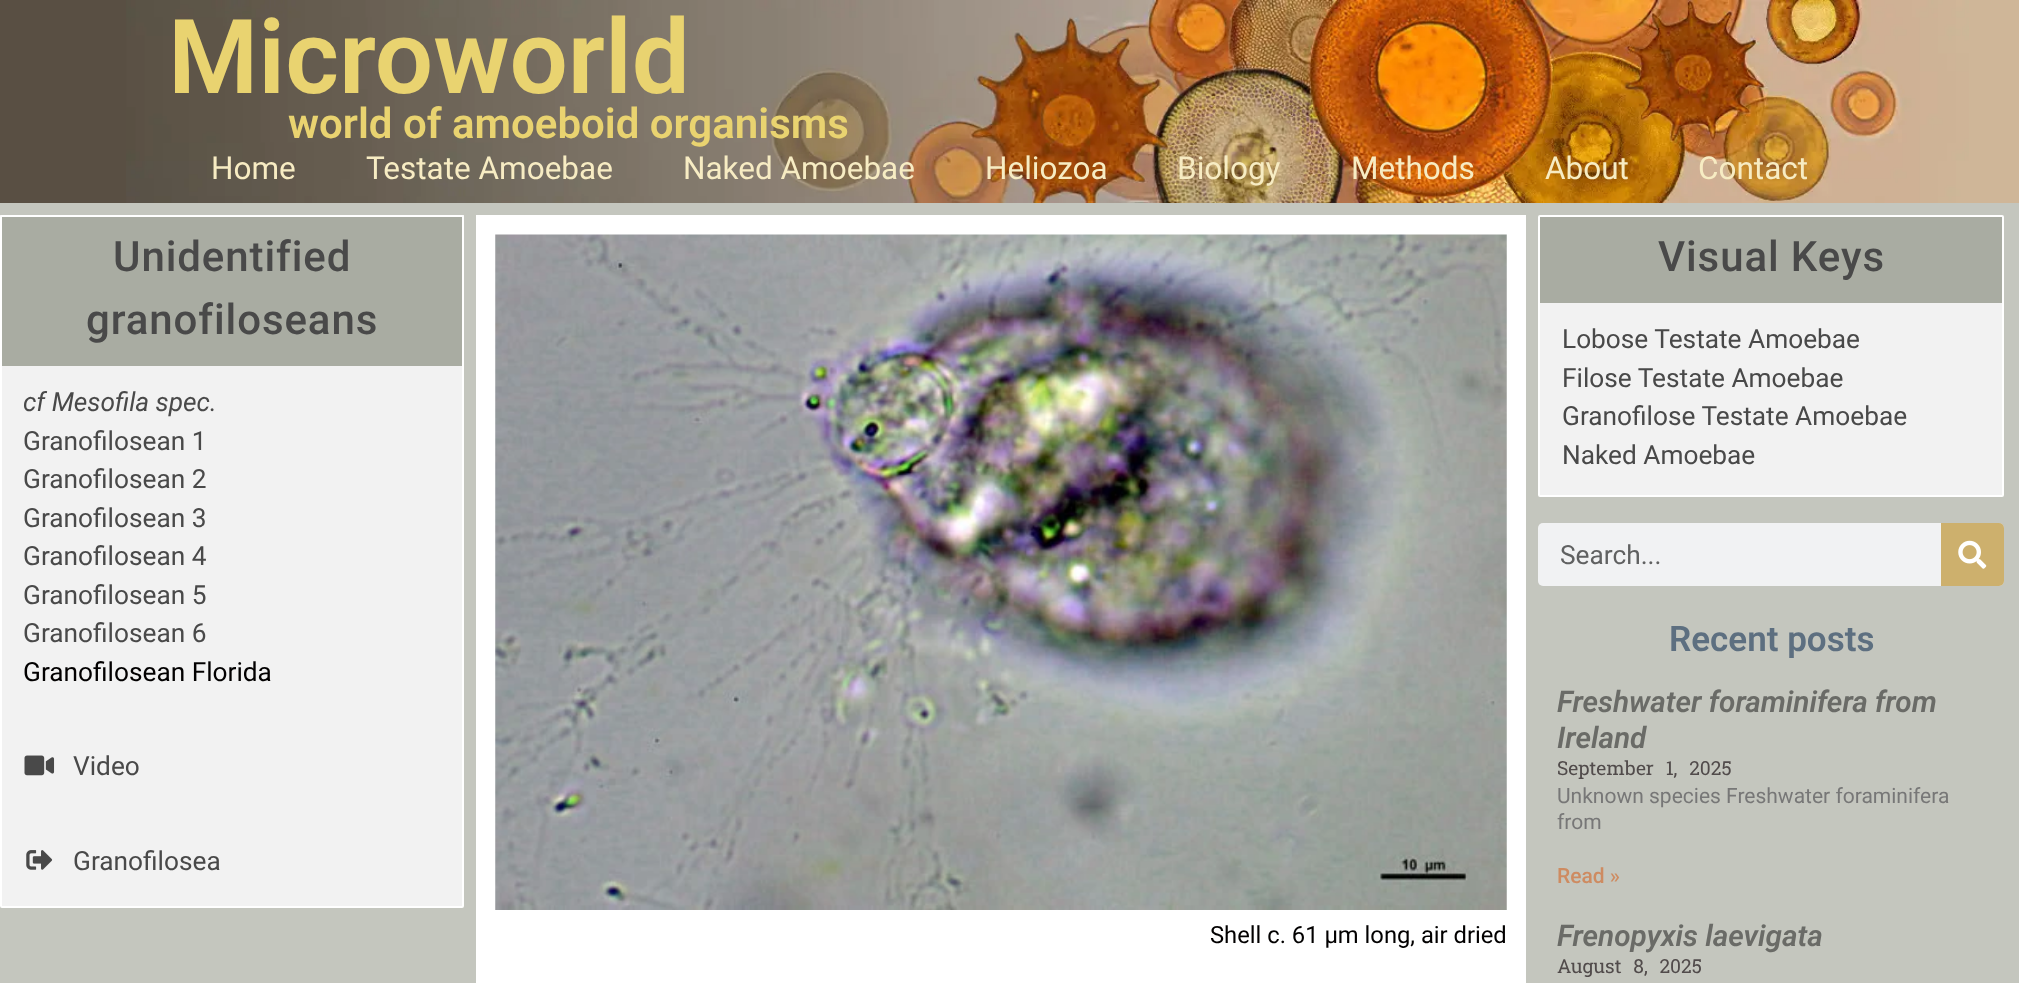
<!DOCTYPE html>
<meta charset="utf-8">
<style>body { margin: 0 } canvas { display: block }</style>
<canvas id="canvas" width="2019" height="983"></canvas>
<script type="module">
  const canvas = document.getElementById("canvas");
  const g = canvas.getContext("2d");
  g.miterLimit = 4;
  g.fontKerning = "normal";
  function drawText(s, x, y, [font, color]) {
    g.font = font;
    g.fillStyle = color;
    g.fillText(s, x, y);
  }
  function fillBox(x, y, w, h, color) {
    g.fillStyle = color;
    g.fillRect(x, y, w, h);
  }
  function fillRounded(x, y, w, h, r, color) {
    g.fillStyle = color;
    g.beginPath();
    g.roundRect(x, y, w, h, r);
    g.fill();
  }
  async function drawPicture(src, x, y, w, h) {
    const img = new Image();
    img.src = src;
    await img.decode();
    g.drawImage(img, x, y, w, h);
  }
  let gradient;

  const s1 = ["600 103.25px Roboto", "#E9D370"];
  const s2 = ["600 42px Roboto", "#E9D370"];
  const s3 = ["31.5px Roboto", "#F7ECC3"];
  const s4 = ["500 42px Roboto", "#494949"];
  const s5 = ["italic 26.25px Roboto", "#494949"];
  const s6 = ["26.25px Roboto", "#494949"];
  const s7 = ["26.25px Roboto", "#020000"];
  const s8 = ["23.75px Roboto", "#020000"];
  const s9 = ["26.25px Roboto", "#606161"];
  const s10 = ["600 35px Roboto", "#5D6F80"];
  const s11 = ["italic 600 29.75px Roboto", "#6A6B67"];
  const s12 = ["19.25px Roboto Slab", "#514B4B"];
  const s13 = ["21px Roboto", "#777777"];
  const s14 = ["500 21px Roboto", "#CE8B61"];

  fillBox(0, 0, 2019, 983, "#C4C6BE");
  gradient = g.createLinearGradient(367, -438, 1652, 641);
  gradient.addColorStop(0.39, "#594F43");
  gradient.addColorStop(0.57, "#CFB698");
  g.fillStyle = gradient;
  g.fillRect(0, 0, 2019, 203);
  await drawPicture("pic1.png", 126, 0, 1843, 203);
  drawText("Microworld", 168, 93, s1);
  drawText("world of amoeboid organisms", 288, 138, s2);
  drawText("Home", 211, 179, s3);
  drawText("Testate Amoebae", 366, 179, s3);
  drawText("Naked Amoebae", 683, 179, s3);
  drawText("Heliozoa", 985, 179, s3);
  drawText("Biology", 1177, 179, s3);
  drawText("Methods", 1351, 179, s3);
  drawText("About", 1545, 179, s3);
  drawText("Contact", 1698, 179, s3);
  fillBox(0, 215, 464, 2, "#F2F2F2");
  g.beginPath();
  g.roundRect(1, 216, 462, 691, 1);
  g.fill();
  g.strokeStyle = "#FFFFFF";
  g.lineWidth = 2;
  g.stroke();
  fillBox(2, 217, 460, 149, "#A9ACA2");
  g.letterSpacing = "0.9px";
  drawText("Unidentified", 113, 271, s4);
  drawText("granofiloseans", 86, 334, s4);
  g.letterSpacing = "0px";
  drawText("cf Mesofila spec.", 23, 411, s5);
  drawText("Granofilosean 1", 23, 450, s6);
  drawText("Granofilosean 2", 23, 488, s6);
  drawText("Granofilosean 3", 23, 527, s6);
  drawText("Granofilosean 4", 23, 565, s6);
  drawText("Granofilosean 5", 23, 604, s6);
  drawText("Granofilosean 6", 23, 642, s6);
  drawText("Granofilosean Florida", 23, 681, s7);
  await drawPicture("pic2.png", 24, 755, 31, 21);
  drawText("Video", 73, 775, s6);
  await drawPicture("pic3.png", 26, 850, 27, 20);
  drawText("Granofilosea", 73, 870, s6);
  fillBox(476, 215, 1050, 768, "#FFFFFF");
  await drawPicture("pic4.png", 495, 234, 1012, 676);
  drawText("Shell c. 61 µm long, air dried", 1210, 943, s8);
  g.fillStyle = "#F2F2F2";
  g.beginPath();
  g.roundRect(1539, 216, 464, 280, 1);
  g.fill();
  g.stroke();
  fillBox(1540, 217, 462, 86, "#A9ACA2");
  g.letterSpacing = "0.9px";
  drawText("Visual Keys", 1658, 271, s4);
  g.letterSpacing = "0px";
  drawText("Lobose Testate Amoebae", 1562, 348, s6);
  drawText("Filose Testate Amoebae", 1562, 387, s6);
  drawText("Granofilose Testate Amoebae", 1562, 425, s6);
  drawText("Naked Amoebae", 1562, 464, s6);
  fillRounded(1538, 523, 466, 63, 5, "#F1F2F3");
  drawText("Search...", 1560, 564, s9);
  g.fillStyle = "rgba(194, 156, 69, 0.77)";
  g.beginPath();
  g.roundRect(1941, 523, 63, 63, [0, 5, 5, 0]);
  g.fill();
  await drawPicture("pic5.png", 1958, 540, 29, 29);
  drawText("Recent posts", 1669, 651, s10);
  drawText("Freshwater foraminifera from", 1557, 712, s11);
  drawText("Ireland", 1557, 748, s11);
  g.wordSpacing = "7px";
  drawText("September 1, 2025", 1557, 775, s12);
  g.wordSpacing = "0px";
  drawText("Unknown species Freshwater foraminifera", 1557, 803, s13);
  drawText("from", 1557, 829, s13);
  drawText("Read »", 1557, 883, s14);
  drawText("Frenopyxis laevigata", 1557, 946, s11);
  g.wordSpacing = "7px";
  drawText("August 8, 2025", 1557, 973, s12);
</script>
